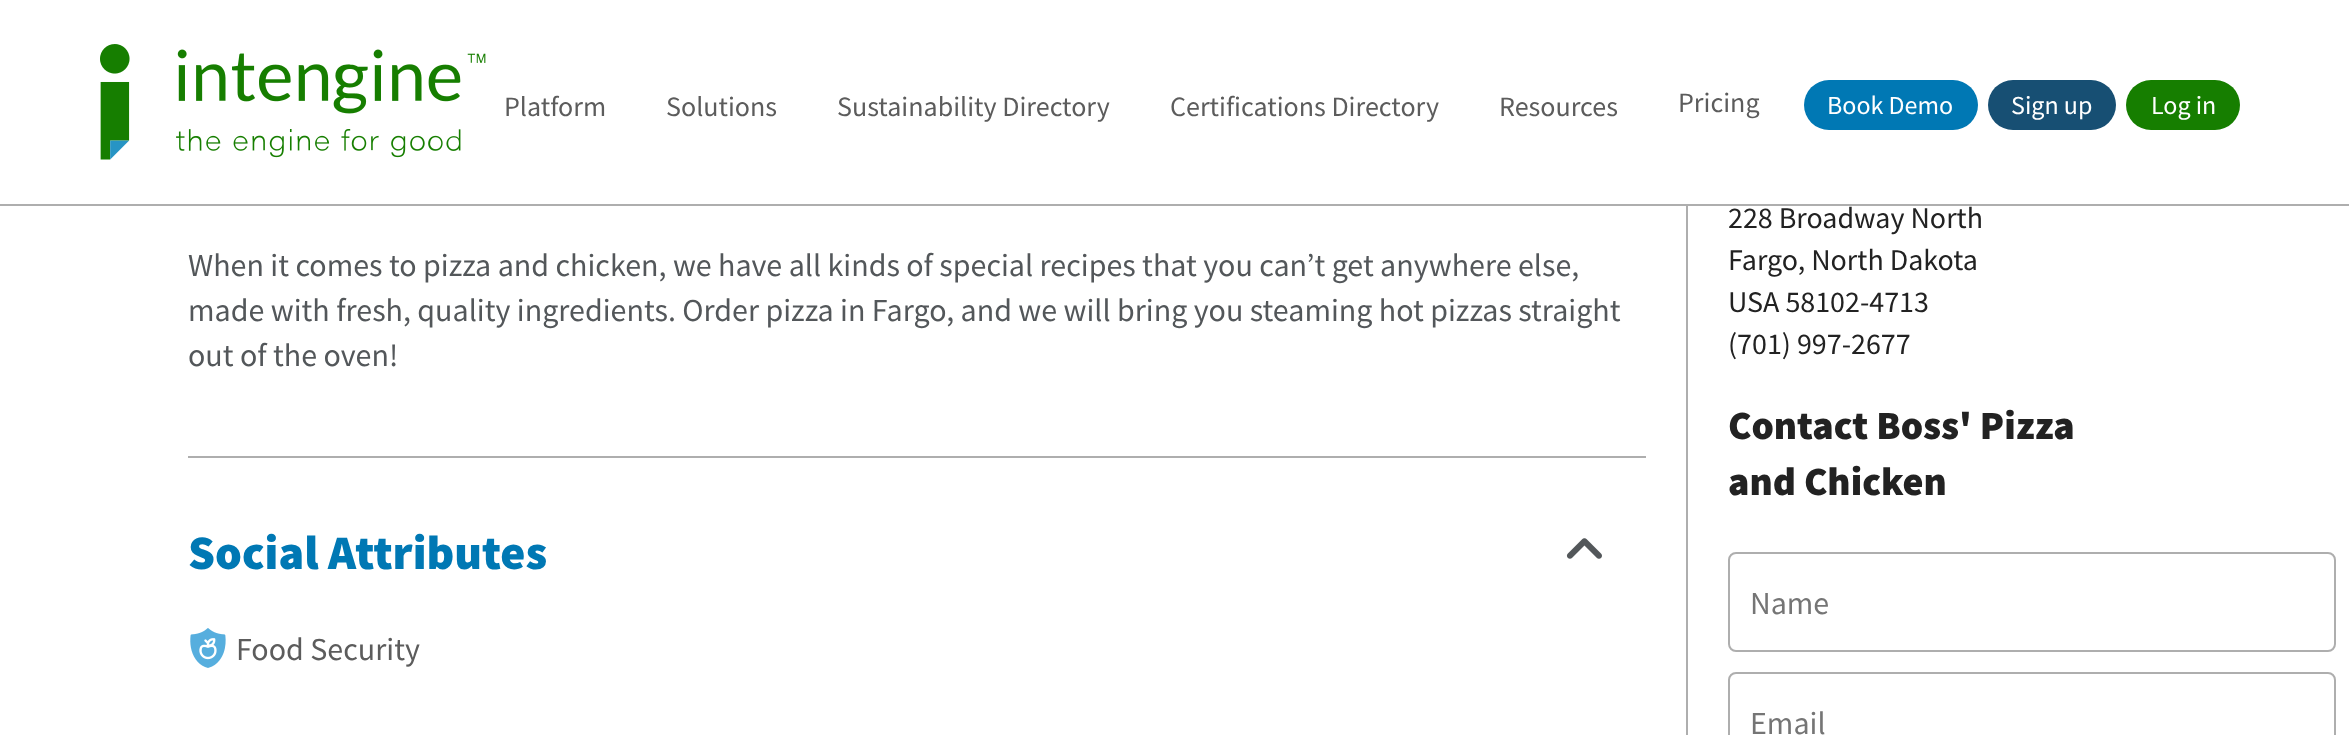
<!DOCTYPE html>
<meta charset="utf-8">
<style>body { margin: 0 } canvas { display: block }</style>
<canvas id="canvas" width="2349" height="735"></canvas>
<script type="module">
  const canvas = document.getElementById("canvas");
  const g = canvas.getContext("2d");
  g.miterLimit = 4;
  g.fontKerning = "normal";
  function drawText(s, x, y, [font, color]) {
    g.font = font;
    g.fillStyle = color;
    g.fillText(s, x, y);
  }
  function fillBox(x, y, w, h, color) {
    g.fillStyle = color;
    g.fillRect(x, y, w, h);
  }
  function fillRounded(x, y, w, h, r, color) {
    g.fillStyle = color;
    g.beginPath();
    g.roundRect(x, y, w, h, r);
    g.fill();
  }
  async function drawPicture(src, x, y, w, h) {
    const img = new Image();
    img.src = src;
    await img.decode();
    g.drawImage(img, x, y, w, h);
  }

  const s1 = ["28px Source Sans Pro", "#5C5C5C"];
  const s2 = ["26px Source Sans Pro", "#FFFFFF"];
  const s3 = ["32px Source Sans Pro", "#53575A"];
  const s4 = ["900 48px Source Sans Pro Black", "#0078B4"];
  const s5 = ["32px Source Sans Pro", "#5C5C5C"];
  const s6 = ["30px Source Sans Pro", "#222222"];
  const s7 = ["900 40px Source Sans Pro Black", "#222222"];
  const s8 = ["32px Source Sans Pro", "#757575"];

  fillBox(0, 0, 2349, 735, "#FFFFFF");
  fillBox(0, 204, 2349, 2, "#AEAEAE");
  await drawPicture("pic1.png", 100, 44, 386, 116);
  drawText("Platform", 504, 116, s1);
  drawText("Solutions", 666, 116, s1);
  drawText("Sustainability Directory", 837, 116, s1);
  drawText("Certifications Directory", 1170, 116, s1);
  drawText("Resources", 1499, 116, s1);
  drawText("Pricing", 1678, 112, s1);
  fillRounded(1804, 80, 174, 50, 25, "#0078B4");
  drawText("Book Demo", 1827, 114, s2);
  fillRounded(1988, 80, 128, 50, 25, "#174F73");
  drawText("Sign up", 2011, 114, s2);
  fillRounded(2126, 80, 114, 50, 25, "#167E00");
  drawText("Log in", 2151, 114, s2);
  fillBox(1686, 206, 2, 529, "#AEAEAE");
  drawText("When it comes to pizza and chicken, we have all kinds of special recipes that you can’t get anywhere else,", 188, 276, s3);
  drawText("made with fresh, quality ingredients. Order pizza in Fargo, and we will bring you steaming hot pizzas straight", 188, 321, s3);
  drawText("out of the oven!", 188, 366, s3);
  fillBox(188, 456, 1458, 2, "#AEAEAE");
  drawText("Social Attributes", 188, 569, s4);
  await drawPicture("pic2.png", 190, 628, 36, 40);
  drawText("Food Security", 236, 660, s5);
  await drawPicture("pic3.png", 1566, 538, 36, 21);
  drawText("228 Broadway North", 1728, 228, s6);
  drawText("Fargo, North Dakota", 1728, 270, s6);
  drawText("USA 58102-4713", 1728, 312, s6);
  drawText("(701) 997-2677", 1728, 354, s6);
  drawText("Contact Boss' Pizza", 1728, 439, s7);
  drawText("and Chicken", 1728, 495, s7);
  g.beginPath();
  g.roundRect(1729, 553, 606, 98, 7);
  g.strokeStyle = "#AEAEAE";
  g.lineWidth = 2;
  g.stroke();
  drawText("Name", 1750, 614, s8);
  g.beginPath();
  g.roundRect(1729, 673, 606, 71, 7);
  g.stroke();
  drawText("Email", 1750, 734, s8);
</script>
